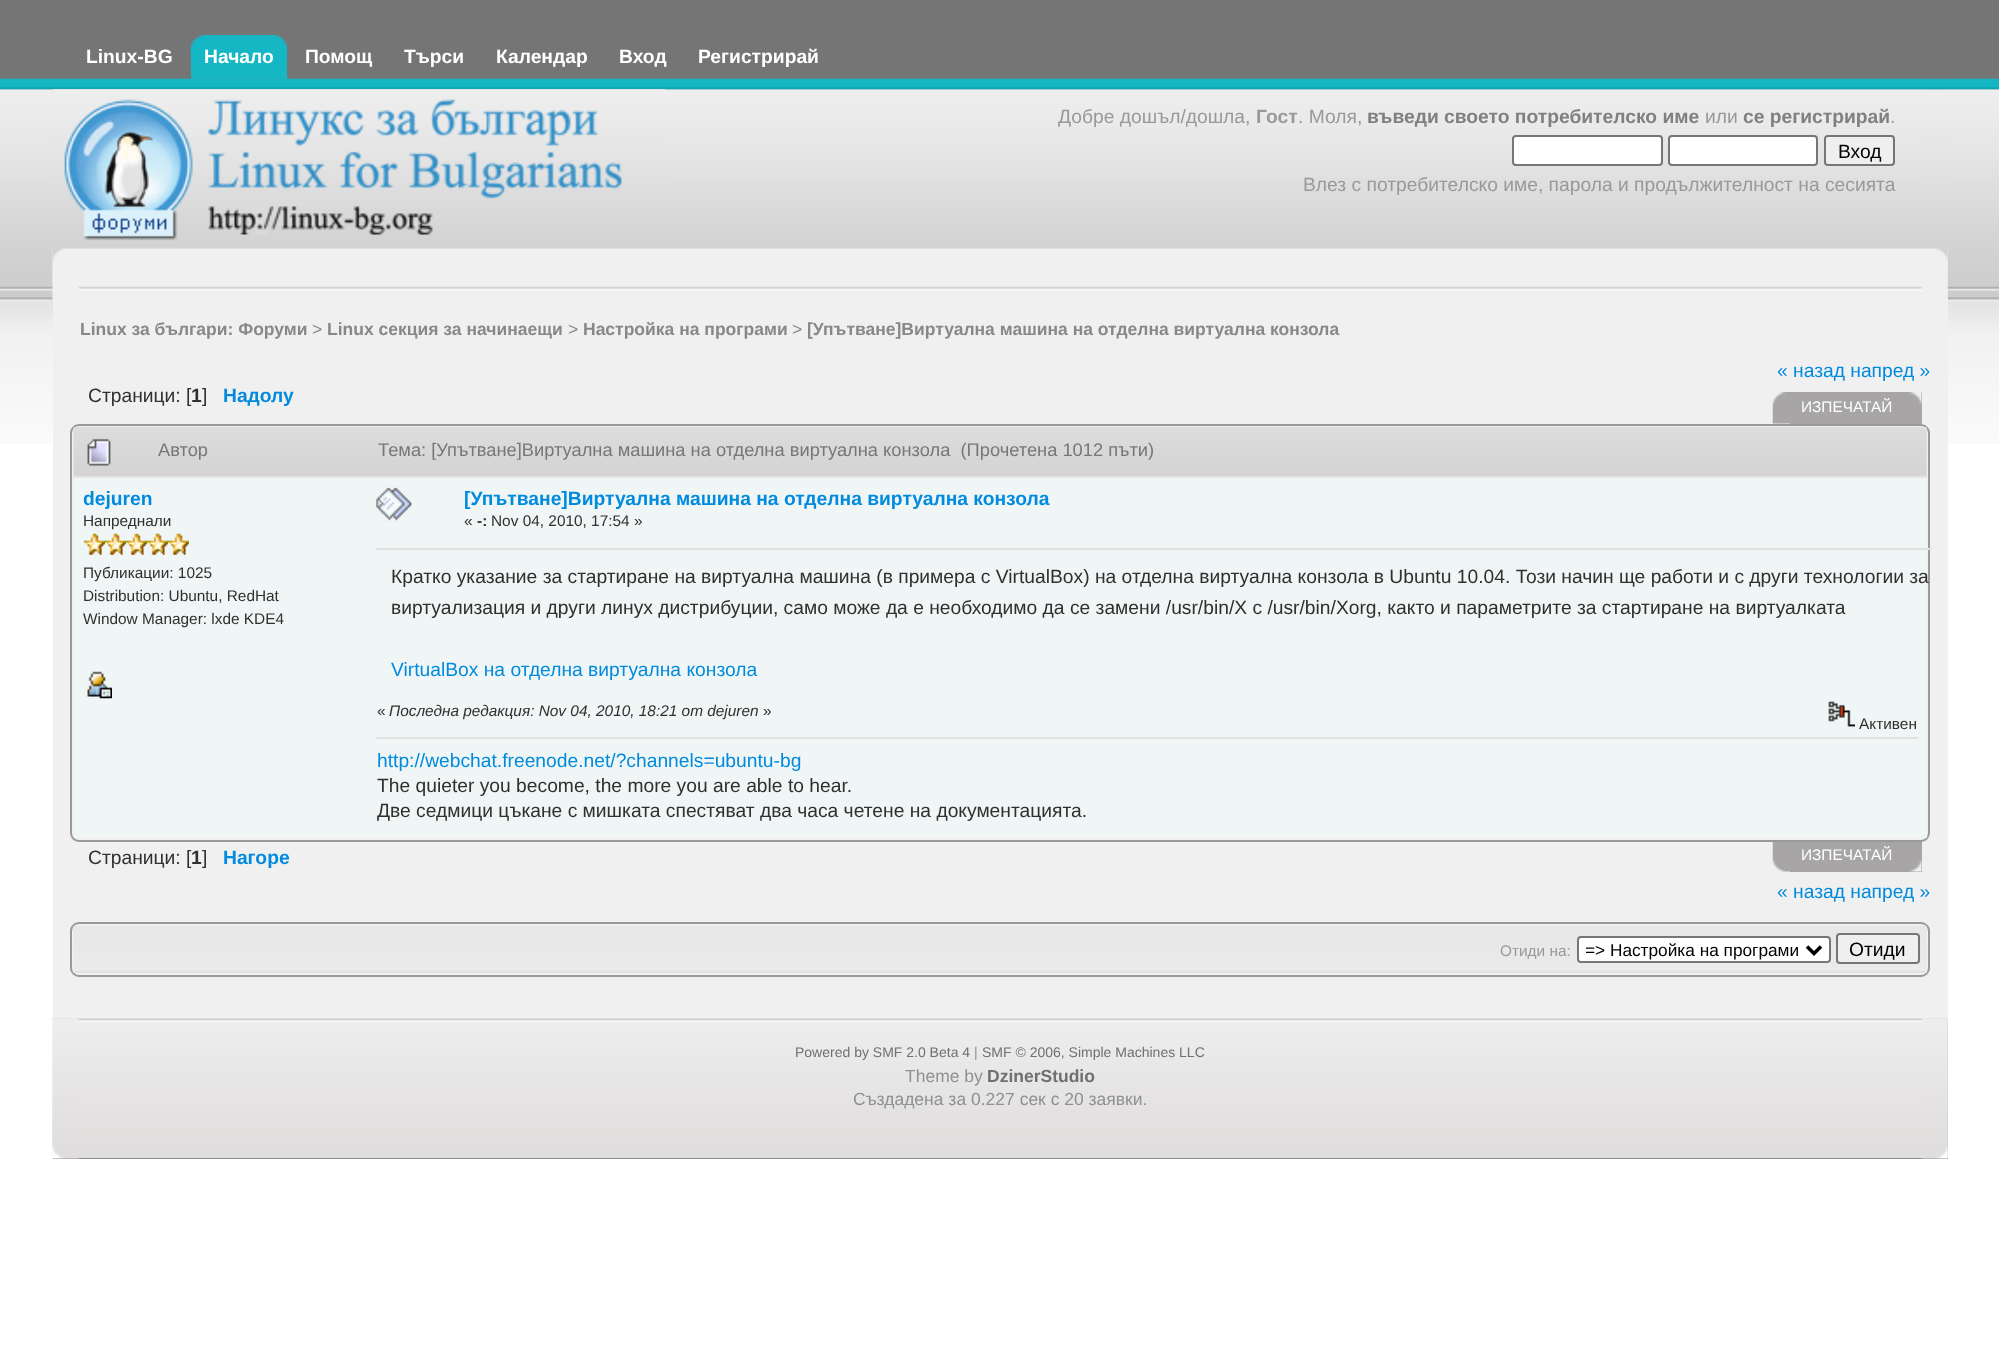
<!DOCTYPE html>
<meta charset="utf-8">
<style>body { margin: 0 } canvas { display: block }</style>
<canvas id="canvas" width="1999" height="1345"></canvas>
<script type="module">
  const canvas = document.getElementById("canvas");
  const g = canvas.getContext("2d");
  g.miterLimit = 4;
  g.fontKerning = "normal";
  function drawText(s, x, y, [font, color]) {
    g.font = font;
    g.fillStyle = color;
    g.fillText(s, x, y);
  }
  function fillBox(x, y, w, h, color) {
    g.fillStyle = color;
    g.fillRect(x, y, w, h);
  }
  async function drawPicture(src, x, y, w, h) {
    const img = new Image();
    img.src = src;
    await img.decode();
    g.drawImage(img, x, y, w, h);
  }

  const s1 = ["bold 19.25px Liberation Sans", "#FFFFFF"];
  const s2 = ["19.25px Liberation Sans", "#999999"];
  const s3 = ["bold 19.25px Liberation Sans", "#999999"];
  const s4 = ["bold 19.25px Liberation Sans", "#808080"];
  const s5 = ["19.25px Liberation Sans", "#000000"];
  const s6 = ["bold 17.5px Liberation Sans", "#888888"];
  const s7 = ["17.5px Liberation Sans", "#888888"];
  const s8 = ["19.25px Liberation Sans", "#008BDF"];
  const s9 = ["19.25px Liberation Sans", "#303030"];
  const s10 = ["bold 19.25px Liberation Sans", "#303030"];
  const s11 = ["bold 19.25px Liberation Sans", "#008BDF"];
  const s12 = ["15.4px Liberation Sans", "#FFFFFF"];
  const s13 = ["18.3px Liberation Sans", "#777777"];
  const s14 = ["15.4px Liberation Sans", "#303030"];
  const s15 = ["bold 15.4px Liberation Sans", "#303030"];
  const s16 = ["italic 15.4px Liberation Sans", "#303030"];
  const s17 = ["15.4px Liberation Sans", "#999999"];
  const s18 = ["17.25px Liberation Sans", "#000000"];
  const s19 = ["14px Liberation Sans", "#707070"];
  const s20 = ["14px Liberation Sans", "#909090"];
  const s21 = ["17.5px Liberation Sans", "#909090"];
  const s22 = ["bold 17.5px Liberation Sans", "#707070"];

  fillBox(0, 0, 1999, 1345, "#FFFFFF");
  await drawPicture("pic1.png", 0, 0, 1999, 444);
  await drawPicture("pic2.png", 52, 0, 1896, 299);
  await drawPicture("pic3.png", 52, 89, 27, 210);
  await drawPicture("pic4.png", 1921, 0, 27, 299);
  drawText("Linux-BG", 86, 63, s1);
  fillBox(191, 35, 96, 44, "#16B7C5");
  await drawPicture("pic5.png", 190, 35, 14, 27);
  await drawPicture("pic6.png", 274, 35, 13, 13);
  drawText("Начало", 204, 63, s1);
  drawText("Помощ", 305, 63, s1);
  drawText("Търси", 404, 63, s1);
  drawText("Календар", 496, 63, s1);
  drawText("Вход", 619, 63, s1);
  drawText("Регистрирай", 698, 63, s1);
  await drawPicture("pic7.png", 52, 89, 613, 152);
  drawText("Добре дошъл/дошла,", 1058, 123, s2);
  drawText("Гост", 1256, 123, s3);
  drawText(". Моля,", 1298, 123, s2);
  drawText("въведи своето потребителско име", 1367, 123, s4);
  drawText("или", 1705, 123, s2);
  drawText("се регистрирай", 1743, 123, s4);
  drawText(".", 1890, 123, s2);
  g.fillStyle = "#FFFFFF";
  g.beginPath();
  g.roundRect(1513, 136, 149, 29, 3);
  g.fill();
  g.strokeStyle = "#767676";
  g.lineWidth = 2;
  g.stroke();
  g.beginPath();
  g.roundRect(1669, 136, 148, 29, 3);
  g.fill();
  g.stroke();
  g.fillStyle = "#EFEFEF";
  g.beginPath();
  g.roundRect(1825, 136, 69, 29, 3);
  g.fill();
  g.stroke();
  drawText("Вход", 1838, 158, s5);
  drawText("Влез с потребителско име, парола и продължителност на сесията", 1303, 191, s2);
  fillBox(53, 299, 1895, 720, "#F0F0F0");
  drawText("Linux за българи: Форуми", 80, 335, s6);
  drawText(">", 312, 335, s7);
  drawText("Linux секция за начинаещи", 327, 335, s6);
  drawText(">", 568, 335, s7);
  drawText("Настройка на програми", 583, 335, s6);
  drawText(">", 792, 335, s7);
  drawText("[Упътване]Виртуална машина на отделна виртуална конзола", 807, 335, s6);
  drawText("« назад напред »", 1777, 377, s8);
  drawText("Страници: [", 88, 402, s9);
  drawText("1", 191, 402, s10);
  drawText("]", 202, 402, s9);
  drawText("Надолу", 223, 402, s11);
  await drawPicture("pic8.png", 1772, 392, 18, 32);
  fillBox(1790, 392, 132, 32, "#A7A5A5");
  await drawPicture("pic9.png", 1909, 392, 13, 13);
  drawText("ИЗПЕЧАТАЙ", 1801, 412, s12);
  g.beginPath();
  g.roundRect(71, 425, 1858, 416, 8);
  g.strokeStyle = "#999999";
  g.stroke();
  await drawPicture("pic10.png", 73, 427, 1854, 51);
  fillBox(74, 476, 1853, 2, "#E4E4E4");
  await drawPicture("pic11.png", 87, 438, 24, 28);
  drawText("Автор", 158, 456, s13);
  drawText("Тема: [Упътване]Виртуална машина на отделна виртуална конзола  (Прочетена 1012 пъти)", 378, 456, s13);
  fillBox(74, 478, 1853, 360, "#F0F5F5");
  drawText("dejuren", 83, 505, s11);
  drawText("Напреднали", 83, 526, s14);
  await drawPicture("pic12.png", 84, 533, 21, 22);
  await drawPicture("pic12.png", 105, 533, 21, 22);
  await drawPicture("pic13.png", 126, 533, 21, 22);
  await drawPicture("pic13.png", 147, 533, 21, 22);
  await drawPicture("pic12.png", 168, 533, 21, 22);
  drawText("Публикации: 1025", 83, 578, s14);
  drawText("Distribution: Ubuntu, RedHat", 83, 601, s14);
  drawText("Window Manager: lxde KDE4", 83, 624, s14);
  await drawPicture("pic14.png", 87, 671, 25, 28);
  await drawPicture("pic15.png", 376, 487, 36, 34);
  drawText("[Упътване]Виртуална машина на отделна виртуална конзола", 464, 505, s11);
  drawText("«", 464, 526, s14);
  drawText("-:", 477, 526, s15);
  drawText("Nov 04, 2010, 17:54 »", 491, 526, s14);
  fillBox(376, 548, 1556, 2, "#E1E1E1");
  drawText("Кратко указание за стартиране на виртуална машина (в примера с VirtualBox) на отделна виртуална конзола в Ubuntu 10.04. Този начин ще работи и с други технологии за", 391, 583, s9);
  drawText("виртуализация и други линух дистрибуции, само можe да е необходимо да се замени /usr/bin/X с /usr/bin/Xorg, както и параметрите за стартиране на виртуалката", 391, 614, s9);
  drawText("VirtualBox на отделна виртуална конзола", 391, 676, s8);
  drawText("«", 377, 716, s14);
  drawText("Последна редакция: Nov 04, 2010, 18:21 от dejuren", 389, 716, s16);
  drawText("»", 763, 716, s14);
  await drawPicture("pic16.png", 1828, 701, 27, 26);
  drawText("Активен", 1859, 729, s14);
  fillBox(376, 737, 1542, 2, "#E2E2E2");
  drawText("http://webchat.freenode.net/?channels=ubuntu-bg", 377, 767, s8);
  drawText("The quieter you become, the more you are able to hear.", 377, 792, s9);
  drawText("Две седмици цъкане с мишката спестяват два часа четене на документацията.", 377, 817, s9);
  drawText("Страници: [", 88, 864, s9);
  drawText("1", 191, 864, s10);
  drawText("]", 202, 864, s9);
  drawText("Нагоре", 223, 864, s11);
  await drawPicture("pic17.png", 1772, 842, 18, 30);
  fillBox(1790, 842, 132, 30, "#A7A5A5");
  await drawPicture("pic18.png", 1909, 859, 13, 13);
  drawText("ИЗПЕЧАТАЙ", 1801, 860, s12);
  drawText("« назад напред »", 1777, 898, s8);
  g.beginPath();
  g.roundRect(71, 923, 1858, 53, 8);
  g.stroke();
  await drawPicture("pic19.png", 73, 925, 1854, 48);
  fillBox(74, 971, 1853, 2, "#E1E1E1");
  drawText("Отиди на:", 1500, 956, s17);
  g.fillStyle = "#FFFFFF";
  g.beginPath();
  g.roundRect(1578, 937, 252, 25, 3);
  g.fill();
  g.strokeStyle = "#767676";
  g.stroke();
  g.beginPath();
  g.moveTo(1807, 946.5);
  g.lineTo(1814, 953.5);
  g.lineTo(1821, 946.5);
  g.strokeStyle = "#000000";
  g.lineWidth = 3.5;
  g.stroke();
  g.save();
  g.beginPath();
  g.rect(1586, 938, 215, 23);
  g.clip();
  drawText("=> Настройка на програми", 1585, 956, s18);
  g.restore();
  g.fillStyle = "#EFEFEF";
  g.beginPath();
  g.roundRect(1837, 934, 82, 29, 3);
  g.fill();
  g.strokeStyle = "#767676";
  g.lineWidth = 2;
  g.stroke();
  drawText("Отиди", 1849, 956, s5);
  fillBox(53, 1019, 1895, 140, "#343434");
  await drawPicture("pic20.png", 52, 1018, 1896, 141);
  await drawPicture("pic21.png", 52, 1018, 27, 141);
  await drawPicture("pic22.png", 1921, 1018, 27, 141);
  drawText("Powered by SMF 2.0 Beta 4", 795, 1057, s19);
  drawText("|", 974, 1057, s20);
  drawText("SMF © 2006, Simple Machines LLC", 982, 1057, s19);
  drawText("Theme by", 905, 1082, s21);
  drawText("DzinerStudio", 987, 1082, s22);
  drawText("Създадена за 0.227 сек с 20 заявки.", 853, 1105, s21);
</script>
